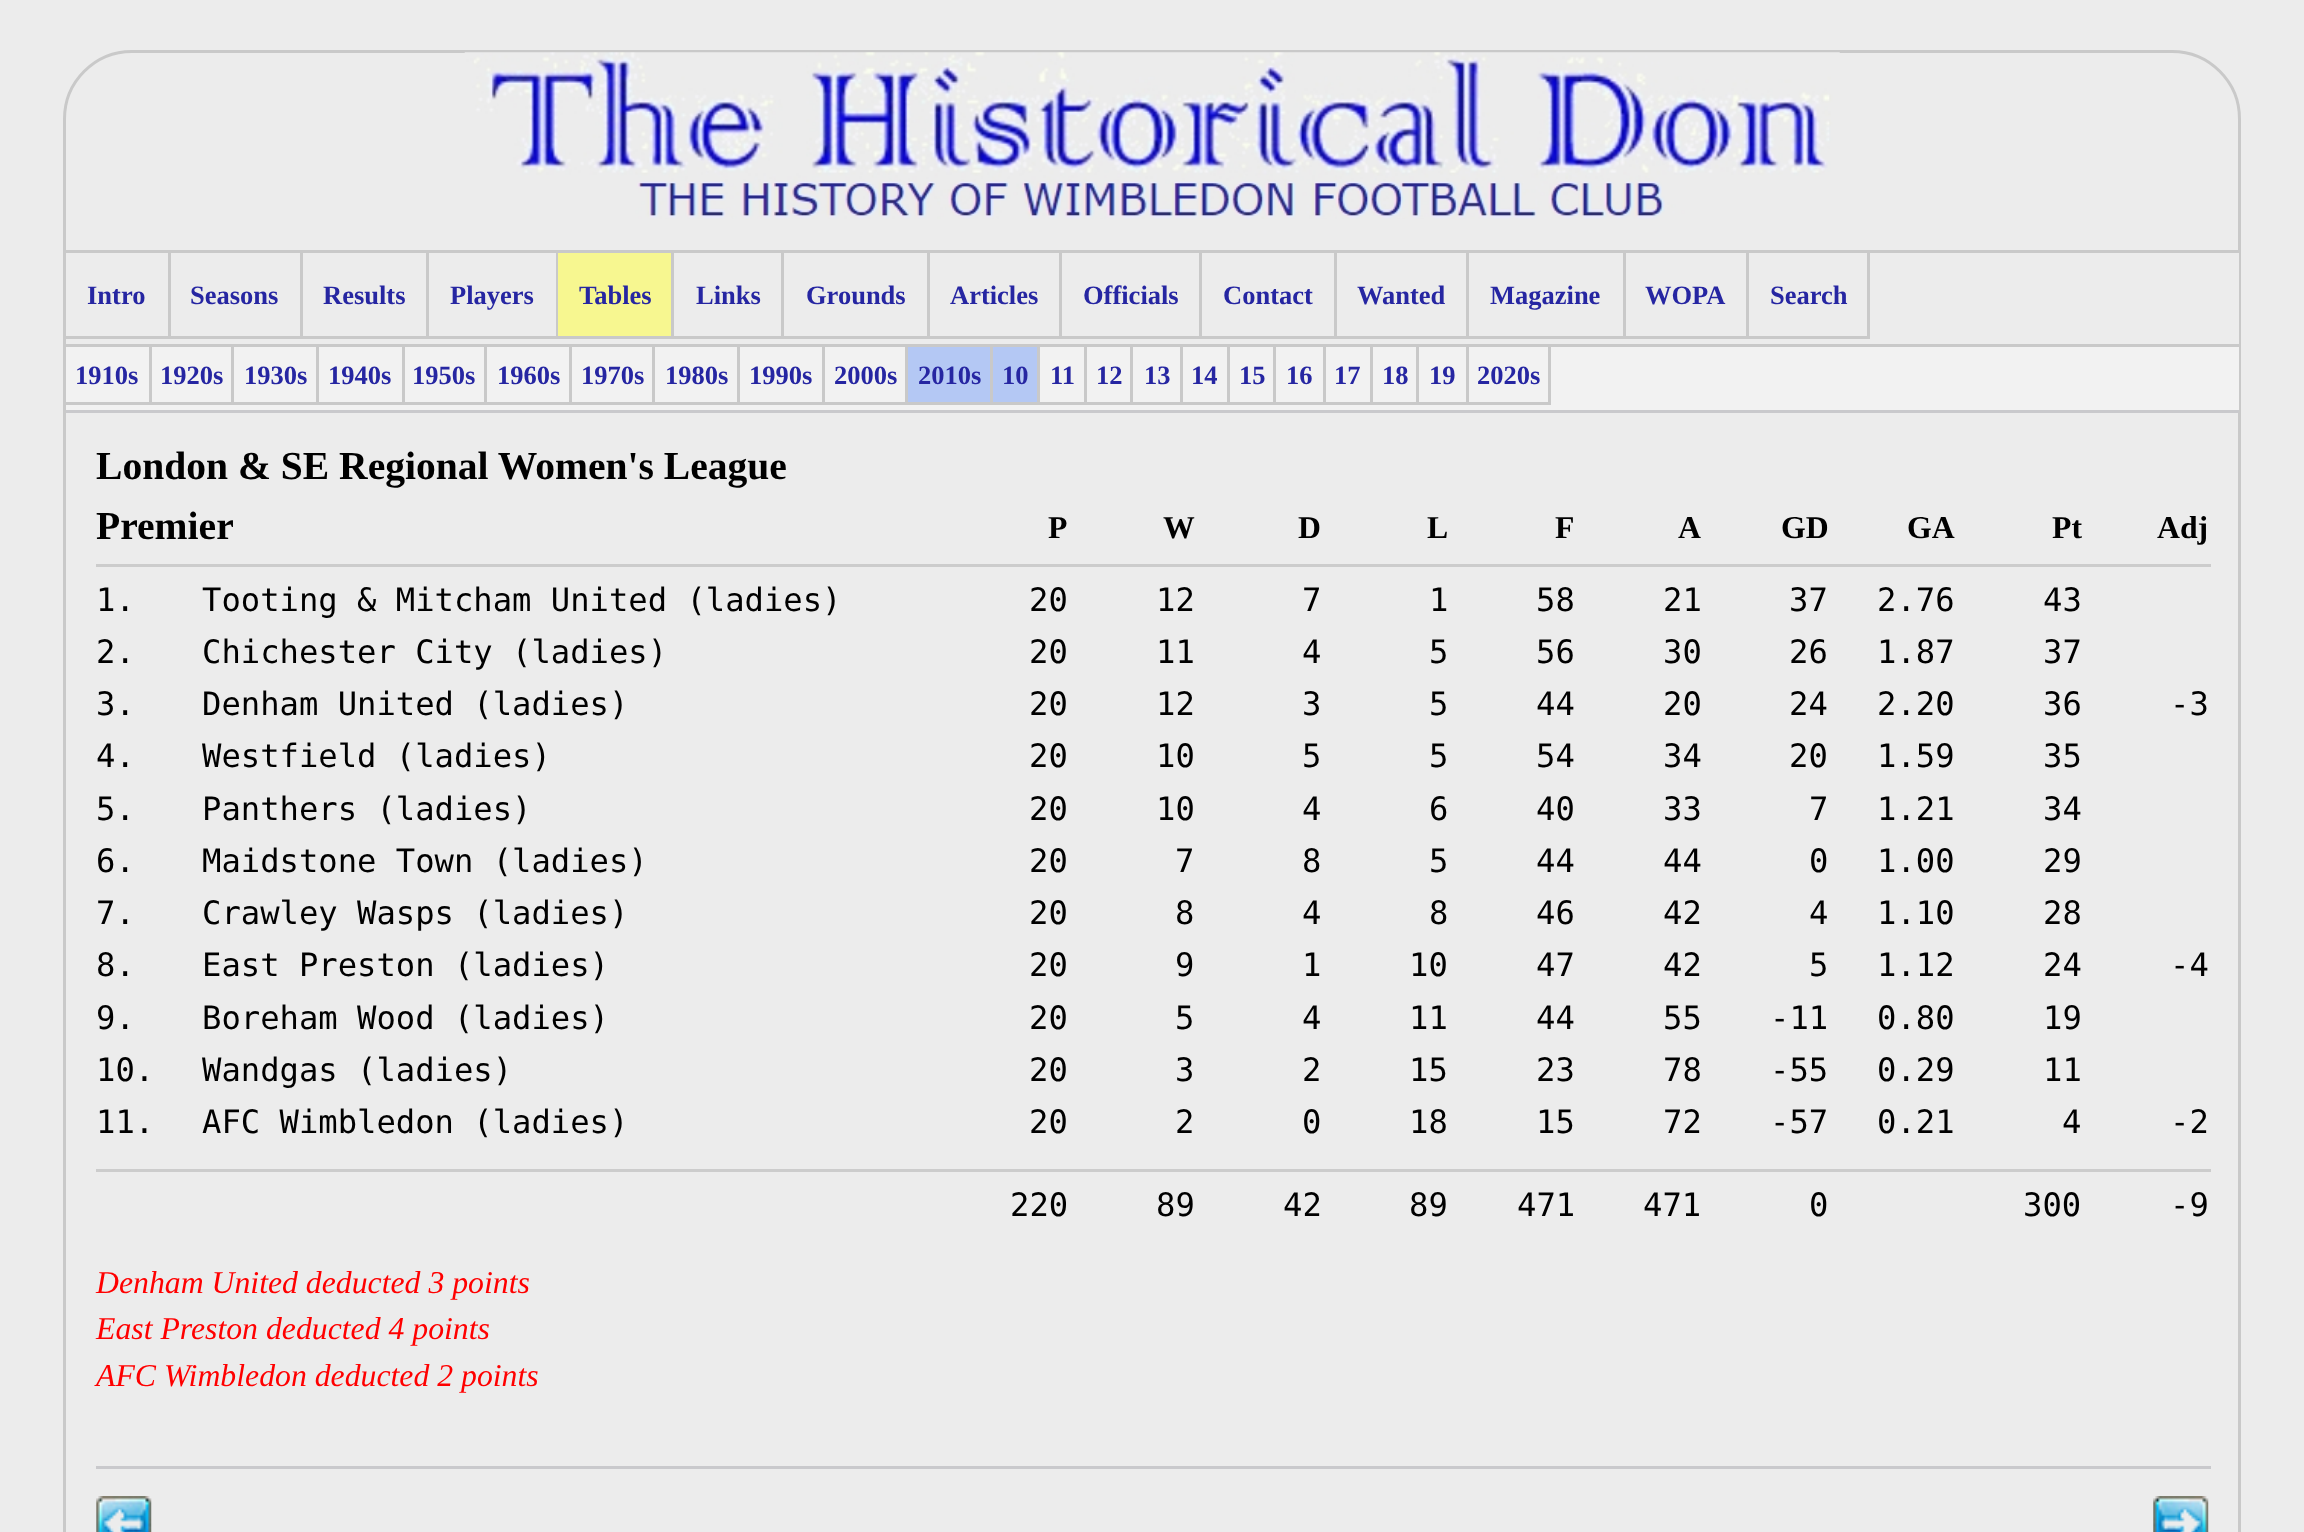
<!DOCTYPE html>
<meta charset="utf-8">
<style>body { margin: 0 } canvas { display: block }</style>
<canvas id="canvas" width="2304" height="1532"></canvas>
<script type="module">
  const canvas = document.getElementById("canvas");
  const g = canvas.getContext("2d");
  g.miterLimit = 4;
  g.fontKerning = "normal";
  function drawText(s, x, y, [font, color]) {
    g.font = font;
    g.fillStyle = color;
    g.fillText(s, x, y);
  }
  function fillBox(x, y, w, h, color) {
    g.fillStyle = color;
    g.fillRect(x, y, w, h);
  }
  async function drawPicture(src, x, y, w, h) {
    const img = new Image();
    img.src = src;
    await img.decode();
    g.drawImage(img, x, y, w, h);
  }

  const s1 = ["bold 26.5px Liberation Serif", "#2626A2"];
  const s2 = ["bold 39.6px Liberation Serif", "#000000"];
  const s3 = ["bold 31.75px Liberation Serif", "#000000"];
  const s4 = ["32.2px DejaVu Sans Mono", "#000000"];
  const s5 = ["italic 31.75px Liberation Serif", "#FF0000"];

  fillBox(0, 0, 2304, 1532, "#ECECEC");
  g.beginPath();
  g.roundRect(64.5, 51.5, 2175, 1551, 67.5);
  g.strokeStyle = "#C9C9C9";
  g.lineWidth = 3;
  g.stroke();
  await drawPicture("pic1.png", 464, 52, 1376, 167);
  fillBox(2238, 253, 1, 91, "#ECECEC");
  fillBox(66, 250, 2173, 3, "#C9C9C9");
  fillBox(168, 253, 3, 85, "#C9C9C9");
  fillBox(66, 336, 105, 3, "#C9C9C9");
  drawText("Intro", 87, 304, s1);
  fillBox(300, 253, 3, 85, "#C9C9C9");
  fillBox(171, 336, 132, 3, "#C9C9C9");
  drawText("Seasons", 190, 304, s1);
  fillBox(426, 253, 3, 85, "#C9C9C9");
  fillBox(303, 336, 126, 3, "#C9C9C9");
  drawText("Results", 323, 304, s1);
  fillBox(556, 253, 2, 85, "#C9C9C9");
  fillBox(429, 336, 129, 3, "#C9C9C9");
  drawText("Players", 450, 304, s1);
  fillBox(558, 253, 113, 83, "#F7F790");
  fillBox(671, 253, 3, 85, "#C9C9C9");
  fillBox(558, 336, 116, 3, "#C9C9C9");
  drawText("Tables", 579, 304, s1);
  fillBox(781, 253, 3, 85, "#C9C9C9");
  fillBox(674, 336, 110, 3, "#C9C9C9");
  drawText("Links", 696, 304, s1);
  fillBox(927, 253, 3, 85, "#C9C9C9");
  fillBox(784, 336, 146, 3, "#C9C9C9");
  drawText("Grounds", 806, 304, s1);
  fillBox(1059, 253, 3, 85, "#C9C9C9");
  fillBox(930, 336, 132, 3, "#C9C9C9");
  drawText("Articles", 950, 304, s1);
  fillBox(1199, 253, 3, 85, "#C9C9C9");
  fillBox(1062, 336, 140, 3, "#C9C9C9");
  drawText("Officials", 1083, 304, s1);
  fillBox(1334, 253, 3, 85, "#C9C9C9");
  fillBox(1202, 336, 135, 3, "#C9C9C9");
  drawText("Contact", 1223, 304, s1);
  fillBox(1466, 253, 3, 85, "#C9C9C9");
  fillBox(1337, 336, 132, 3, "#C9C9C9");
  drawText("Wanted", 1357, 304, s1);
  fillBox(1623, 253, 3, 85, "#C9C9C9");
  fillBox(1469, 336, 156, 3, "#C9C9C9");
  drawText("Magazine", 1490, 304, s1);
  fillBox(1746, 253, 3, 85, "#C9C9C9");
  fillBox(1625, 336, 124, 3, "#C9C9C9");
  drawText("WOPA", 1645, 304, s1);
  fillBox(1867, 253, 3, 85, "#C9C9C9");
  fillBox(1749, 336, 121, 3, "#C9C9C9");
  drawText("Search", 1770, 304, s1);
  fillBox(66, 347, 2173, 63, "#F2F2F2");
  fillBox(66, 344, 2173, 3, "#C9C9C9");
  fillBox(149, 347, 3, 57, "#C9C9C9");
  fillBox(66, 402, 85, 3, "#C9C9C9");
  drawText("1910s", 75, 384, s1);
  fillBox(231, 347, 3, 57, "#C9C9C9");
  fillBox(151, 402, 83, 3, "#C9C9C9");
  drawText("1920s", 160, 384, s1);
  fillBox(316, 347, 3, 57, "#C9C9C9");
  fillBox(234, 402, 85, 3, "#C9C9C9");
  drawText("1930s", 244, 384, s1);
  fillBox(402, 347, 3, 57, "#C9C9C9");
  fillBox(319, 402, 85, 3, "#C9C9C9");
  drawText("1940s", 328, 384, s1);
  fillBox(484, 347, 3, 57, "#C9C9C9");
  fillBox(404, 402, 83, 3, "#C9C9C9");
  drawText("1950s", 412, 384, s1);
  fillBox(569, 347, 3, 57, "#C9C9C9");
  fillBox(487, 402, 85, 3, "#C9C9C9");
  drawText("1960s", 497, 384, s1);
  fillBox(652, 347, 3, 57, "#C9C9C9");
  fillBox(572, 402, 83, 3, "#C9C9C9");
  drawText("1970s", 581, 384, s1);
  fillBox(737, 347, 3, 57, "#C9C9C9");
  fillBox(655, 402, 85, 3, "#C9C9C9");
  drawText("1980s", 665, 384, s1);
  fillBox(822, 347, 3, 57, "#C9C9C9");
  fillBox(740, 402, 85, 3, "#C9C9C9");
  drawText("1990s", 749, 384, s1);
  fillBox(905, 347, 3, 57, "#C9C9C9");
  fillBox(825, 402, 83, 3, "#C9C9C9");
  drawText("2000s", 834, 384, s1);
  fillBox(908, 347, 82, 55, "#B4C8F4");
  fillBox(990, 347, 3, 57, "#C9C9C9");
  fillBox(908, 402, 85, 3, "#C9C9C9");
  drawText("2010s", 918, 384, s1);
  fillBox(993, 347, 44, 55, "#B4C8F4");
  fillBox(1037, 347, 3, 57, "#C9C9C9");
  fillBox(993, 402, 47, 3, "#C9C9C9");
  drawText("10", 1002, 384, s1);
  fillBox(1084, 347, 3, 57, "#C9C9C9");
  fillBox(1040, 402, 46, 3, "#C9C9C9");
  drawText("11", 1050, 384, s1);
  fillBox(1130, 347, 3, 57, "#C9C9C9");
  fillBox(1086, 402, 47, 3, "#C9C9C9");
  drawText("12", 1096, 384, s1);
  fillBox(1180, 347, 3, 57, "#C9C9C9");
  fillBox(1133, 402, 50, 3, "#C9C9C9");
  drawText("13", 1144, 384, s1);
  fillBox(1227, 347, 3, 57, "#C9C9C9");
  fillBox(1183, 402, 46, 3, "#C9C9C9");
  drawText("14", 1191, 384, s1);
  fillBox(1273, 347, 3, 57, "#C9C9C9");
  fillBox(1229, 402, 47, 3, "#C9C9C9");
  drawText("15", 1239, 384, s1);
  fillBox(1323, 347, 3, 57, "#C9C9C9");
  fillBox(1276, 402, 50, 3, "#C9C9C9");
  drawText("16", 1286, 384, s1);
  fillBox(1370, 347, 3, 57, "#C9C9C9");
  fillBox(1326, 402, 46, 3, "#C9C9C9");
  drawText("17", 1334, 384, s1);
  fillBox(1416, 347, 3, 57, "#C9C9C9");
  fillBox(1372, 402, 47, 3, "#C9C9C9");
  drawText("18", 1382, 384, s1);
  fillBox(1466, 347, 3, 57, "#C9C9C9");
  fillBox(1419, 402, 50, 3, "#C9C9C9");
  drawText("19", 1429, 384, s1);
  fillBox(1548, 347, 3, 57, "#C9C9C9");
  fillBox(1469, 402, 82, 3, "#C9C9C9");
  drawText("2020s", 1477, 384, s1);
  fillBox(66, 410, 2173, 3, "#C9C9CC");
  drawText("London & SE Regional Women's League", 96, 479, s2);
  drawText("Premier", 96, 539, s2);
  drawText("P", 1048, 538, s3);
  drawText("W", 1163, 538, s3);
  drawText("D", 1298, 538, s3);
  drawText("L", 1427, 538, s3);
  drawText("F", 1555, 538, s3);
  drawText("A", 1678, 538, s3);
  drawText("GD", 1781, 538, s3);
  drawText("GA", 1907, 538, s3);
  drawText("Pt", 2052, 538, s3);
  fillBox(96, 564, 2115, 3, "#CCCCCC");
  drawText("Adj", 2157, 538, s3);
  drawText("1.", 96, 611, s4);
  drawText("Tooting & Mitcham United (ladies)", 202, 611, s4);
  drawText("20", 1029, 611, s4);
  drawText("12", 1156, 611, s4);
  drawText("7", 1302, 611, s4);
  drawText("1", 1429, 611, s4);
  drawText("58", 1536, 611, s4);
  drawText("21", 1663, 611, s4);
  drawText("37", 1789, 611, s4);
  drawText("2.76", 1877, 611, s4);
  drawText("43", 2043, 611, s4);
  drawText("2.", 96, 663, s4);
  drawText("Chichester City (ladies)", 202, 663, s4);
  drawText("20", 1029, 663, s4);
  drawText("11", 1156, 663, s4);
  drawText("4", 1302, 663, s4);
  drawText("5", 1429, 663, s4);
  drawText("56", 1536, 663, s4);
  drawText("30", 1663, 663, s4);
  drawText("26", 1789, 663, s4);
  drawText("1.87", 1877, 663, s4);
  drawText("37", 2043, 663, s4);
  drawText("3.", 96, 715, s4);
  drawText("Denham United (ladies)", 202, 715, s4);
  drawText("20", 1029, 715, s4);
  drawText("12", 1156, 715, s4);
  drawText("3", 1302, 715, s4);
  drawText("5", 1429, 715, s4);
  drawText("44", 1536, 715, s4);
  drawText("20", 1663, 715, s4);
  drawText("24", 1789, 715, s4);
  drawText("2.20", 1877, 715, s4);
  drawText("36", 2043, 715, s4);
  drawText("-3", 2170, 715, s4);
  drawText("4.", 96, 767, s4);
  drawText("Westfield (ladies)", 202, 767, s4);
  drawText("20", 1029, 767, s4);
  drawText("10", 1156, 767, s4);
  drawText("5", 1302, 767, s4);
  drawText("5", 1429, 767, s4);
  drawText("54", 1536, 767, s4);
  drawText("34", 1663, 767, s4);
  drawText("20", 1789, 767, s4);
  drawText("1.59", 1877, 767, s4);
  drawText("35", 2043, 767, s4);
  drawText("5.", 96, 820, s4);
  drawText("Panthers (ladies)", 202, 820, s4);
  drawText("20", 1029, 820, s4);
  drawText("10", 1156, 820, s4);
  drawText("4", 1302, 820, s4);
  drawText("6", 1429, 820, s4);
  drawText("40", 1536, 820, s4);
  drawText("33", 1663, 820, s4);
  drawText("7", 1809, 820, s4);
  drawText("1.21", 1877, 820, s4);
  drawText("34", 2043, 820, s4);
  drawText("6.", 96, 872, s4);
  drawText("Maidstone Town (ladies)", 202, 872, s4);
  drawText("20", 1029, 872, s4);
  drawText("7", 1175, 872, s4);
  drawText("8", 1302, 872, s4);
  drawText("5", 1429, 872, s4);
  drawText("44", 1536, 872, s4);
  drawText("44", 1663, 872, s4);
  drawText("0", 1809, 872, s4);
  drawText("1.00", 1877, 872, s4);
  drawText("29", 2043, 872, s4);
  drawText("7.", 96, 924, s4);
  drawText("Crawley Wasps (ladies)", 202, 924, s4);
  drawText("20", 1029, 924, s4);
  drawText("8", 1175, 924, s4);
  drawText("4", 1302, 924, s4);
  drawText("8", 1429, 924, s4);
  drawText("46", 1536, 924, s4);
  drawText("42", 1663, 924, s4);
  drawText("4", 1809, 924, s4);
  drawText("1.10", 1877, 924, s4);
  drawText("28", 2043, 924, s4);
  drawText("8.", 96, 976, s4);
  drawText("East Preston (ladies)", 202, 976, s4);
  drawText("20", 1029, 976, s4);
  drawText("9", 1175, 976, s4);
  drawText("1", 1302, 976, s4);
  drawText("10", 1409, 976, s4);
  drawText("47", 1536, 976, s4);
  drawText("42", 1663, 976, s4);
  drawText("5", 1809, 976, s4);
  drawText("1.12", 1877, 976, s4);
  drawText("24", 2043, 976, s4);
  drawText("-4", 2170, 976, s4);
  drawText("9.", 96, 1029, s4);
  drawText("Boreham Wood (ladies)", 202, 1029, s4);
  drawText("20", 1029, 1029, s4);
  drawText("5", 1175, 1029, s4);
  drawText("4", 1302, 1029, s4);
  drawText("11", 1409, 1029, s4);
  drawText("44", 1536, 1029, s4);
  drawText("55", 1663, 1029, s4);
  drawText("-11", 1770, 1029, s4);
  drawText("0.80", 1877, 1029, s4);
  drawText("19", 2043, 1029, s4);
  drawText("10.", 96, 1081, s4);
  drawText("Wandgas (ladies)", 202, 1081, s4);
  drawText("20", 1029, 1081, s4);
  drawText("3", 1175, 1081, s4);
  drawText("2", 1302, 1081, s4);
  drawText("15", 1409, 1081, s4);
  drawText("23", 1536, 1081, s4);
  drawText("78", 1663, 1081, s4);
  drawText("-55", 1770, 1081, s4);
  drawText("0.29", 1877, 1081, s4);
  drawText("11", 2043, 1081, s4);
  drawText("11.", 96, 1133, s4);
  drawText("AFC Wimbledon (ladies)", 202, 1133, s4);
  drawText("20", 1029, 1133, s4);
  drawText("2", 1175, 1133, s4);
  drawText("0", 1302, 1133, s4);
  drawText("18", 1409, 1133, s4);
  drawText("15", 1536, 1133, s4);
  drawText("72", 1663, 1133, s4);
  drawText("-57", 1770, 1133, s4);
  drawText("0.21", 1877, 1133, s4);
  drawText("4", 2062, 1133, s4);
  drawText("-2", 2170, 1133, s4);
  fillBox(96, 1169, 2115, 3, "#CCCCCC");
  drawText("220", 1010, 1216, s4);
  drawText("89", 1156, 1216, s4);
  drawText("42", 1283, 1216, s4);
  drawText("89", 1409, 1216, s4);
  drawText("471", 1517, 1216, s4);
  drawText("471", 1643, 1216, s4);
  drawText("0", 1809, 1216, s4);
  drawText("300", 2023, 1216, s4);
  drawText("-9", 2170, 1216, s4);
  drawText("Denham United deducted 3 points", 96, 1293, s5);
  drawText("East Preston deducted 4 points", 96, 1339, s5);
  drawText("AFC Wimbledon deducted 2 points", 96, 1386, s5);
  fillBox(96, 1466, 2115, 3, "#C9C9CC");
  await drawPicture("pic2.png", 96, 1496, 56, 36);
  await drawPicture("pic3.png", 2153, 1496, 56, 36);
</script>
